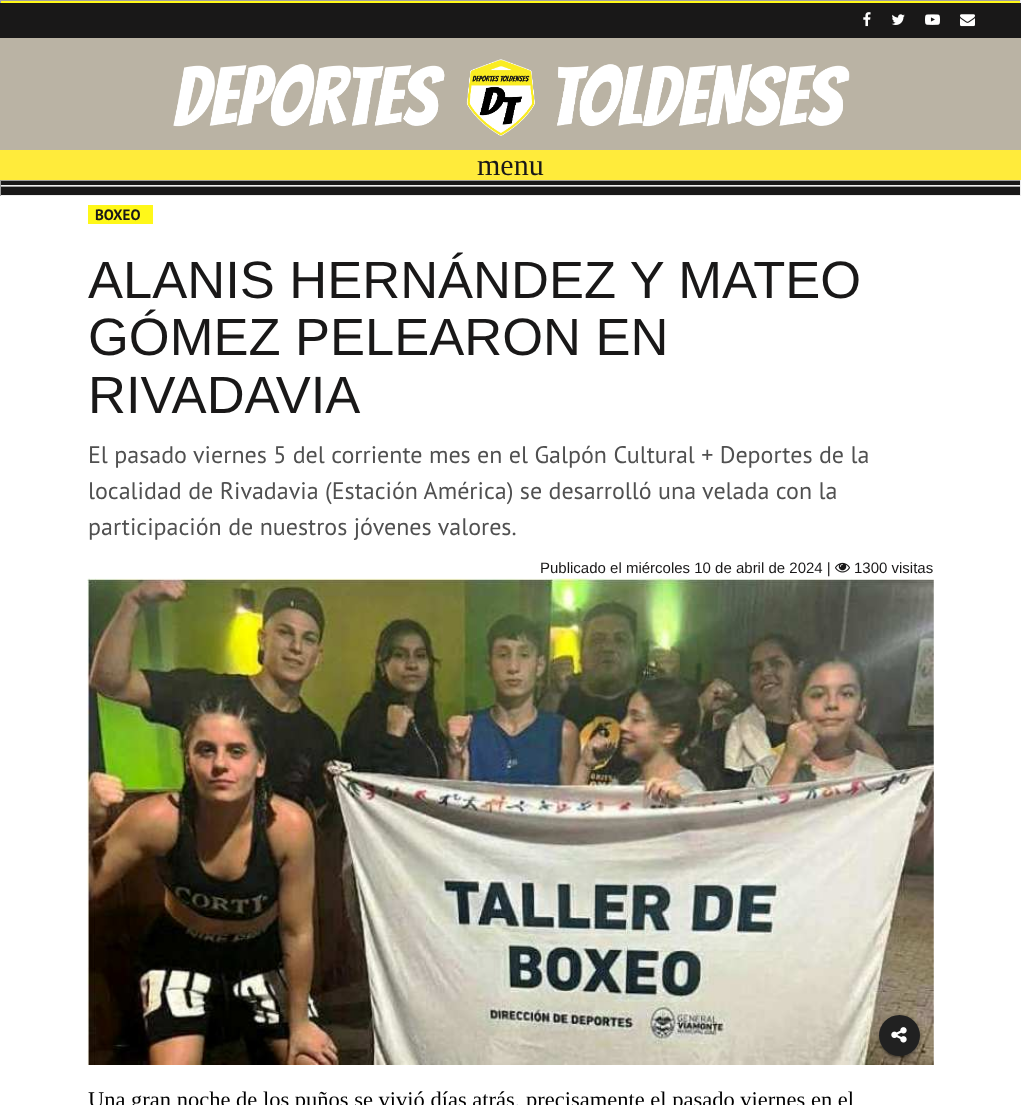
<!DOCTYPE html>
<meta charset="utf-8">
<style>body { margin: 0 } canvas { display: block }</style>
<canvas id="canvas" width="1021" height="1105"></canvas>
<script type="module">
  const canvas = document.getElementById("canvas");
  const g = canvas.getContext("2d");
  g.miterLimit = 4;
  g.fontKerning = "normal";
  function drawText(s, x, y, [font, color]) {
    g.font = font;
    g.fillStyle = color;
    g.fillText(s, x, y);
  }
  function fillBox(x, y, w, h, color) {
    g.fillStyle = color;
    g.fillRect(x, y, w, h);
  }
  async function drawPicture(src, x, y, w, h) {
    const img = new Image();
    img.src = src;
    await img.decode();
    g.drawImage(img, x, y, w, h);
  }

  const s1 = ["30px Liberation Serif", "#191818"];
  const s2 = ["bold 15px PT Sans", "#191818"];
  const s3 = ["52.5px Liberation Sans", "#191818"];
  const s4 = ["24px PT Sans", "#505050"];
  const s5 = ["15px Liberation Sans", "#191818"];
  const s6 = ["22.5px Liberation Serif", "#000000"];

  fillBox(0, 0, 1021, 1105, "#FFFFFF");
  fillBox(0, 1, 1021, 2, "#FFF819");
  fillBox(0, 0, 1021, 1, "#9F9F9F");
  fillBox(1020, 0, 1, 5, "#EEEEEE");
  fillBox(0, 0, 1, 5, "#9F9F9F");
  fillBox(0, 3, 1021, 35, "#191818");
  await drawPicture("pic1.png", 863, 12, 8, 15);
  await drawPicture("pic2.png", 891, 14, 14, 11);
  await drawPicture("pic3.png", 925, 14, 15, 11);
  await drawPicture("pic4.png", 960, 14, 15, 13);
  fillBox(0, 38, 1021, 112, "#BAB3A4");
  await drawPicture("pic5.png", 173, 59, 677, 77);
  fillBox(0, 150, 1021, 30, "#FFEB3B");
  drawText("menu", 477, 175, s1);
  fillBox(0, 181, 1021, 4, "#191818");
  fillBox(0, 180, 1021, 1, "#9F9F9F");
  fillBox(1020, 180, 1, 6, "#EEEEEE");
  fillBox(0, 185, 1021, 1, "#EEEEEE");
  fillBox(0, 180, 1, 6, "#9F9F9F");
  fillBox(1, 187, 1019, 8, "#191818");
  fillBox(0, 186, 1021, 1, "#9F9F9F");
  fillBox(1020, 186, 1, 10, "#EEEEEE");
  fillBox(0, 195, 1021, 1, "#EEEEEE");
  fillBox(0, 186, 1, 10, "#9F9F9F");
  fillBox(88, 205, 65, 19, "#FFF819");
  drawText("BOXEO", 95, 220, s2);
  drawText("ALANIS HERNÁNDEZ Y MATEO", 88, 298, s3);
  drawText("GÓMEZ PELEARON EN", 88, 355, s3);
  drawText("RIVADAVIA", 88, 413, s3);
  drawText("El pasado viernes 5 del corriente mes en el Galpón Cultural + Deportes de la", 88, 463, s4);
  drawText("localidad de Rivadavia (Estación América) se desarrolló una velada con la", 88, 499, s4);
  drawText("participación de nuestros jóvenes valores.", 88, 535, s4);
  drawText("Publicado el miércoles 10 de abril de 2024 |", 540, 573, s5);
  await drawPicture("pic6.png", 835, 562, 15, 11);
  drawText("1300 visitas", 854, 573, s5);
  await drawPicture("pic7.png", 87, 578, 847, 487);
  g.fillStyle = "rgba(0, 0, 0, 0.2)";
  g.filter = "blur(3px)";
  g.beginPath();
  g.roundRect(879, 1016, 41, 42, 20.5);
  g.fill();
  g.filter = "none";
  g.fillStyle = "rgba(0, 0, 0, 0.12)";
  g.filter = "blur(0.5px)";
  g.beginPath();
  g.roundRect(881, 1021, 37, 37, 18.5);
  g.fill();
  g.filter = "none";
  g.fillStyle = "rgba(0, 0, 0, 0.14)";
  g.filter = "blur(1px)";
  g.beginPath();
  g.roundRect(879, 1018, 41, 41, 20.5);
  g.fill();
  g.filter = "none";
  g.fillStyle = "#212121";
  g.beginPath();
  g.arc(899.5, 1035.5, 20.5, 0, Math.PI * 2);
  g.fill();
  await drawPicture("pic8.png", 891, 1027, 16, 16);
  drawText("Una gran noche de los puños se vivió días atrás, precisamente el pasado viernes en el", 88, 1107, s6);
</script>
